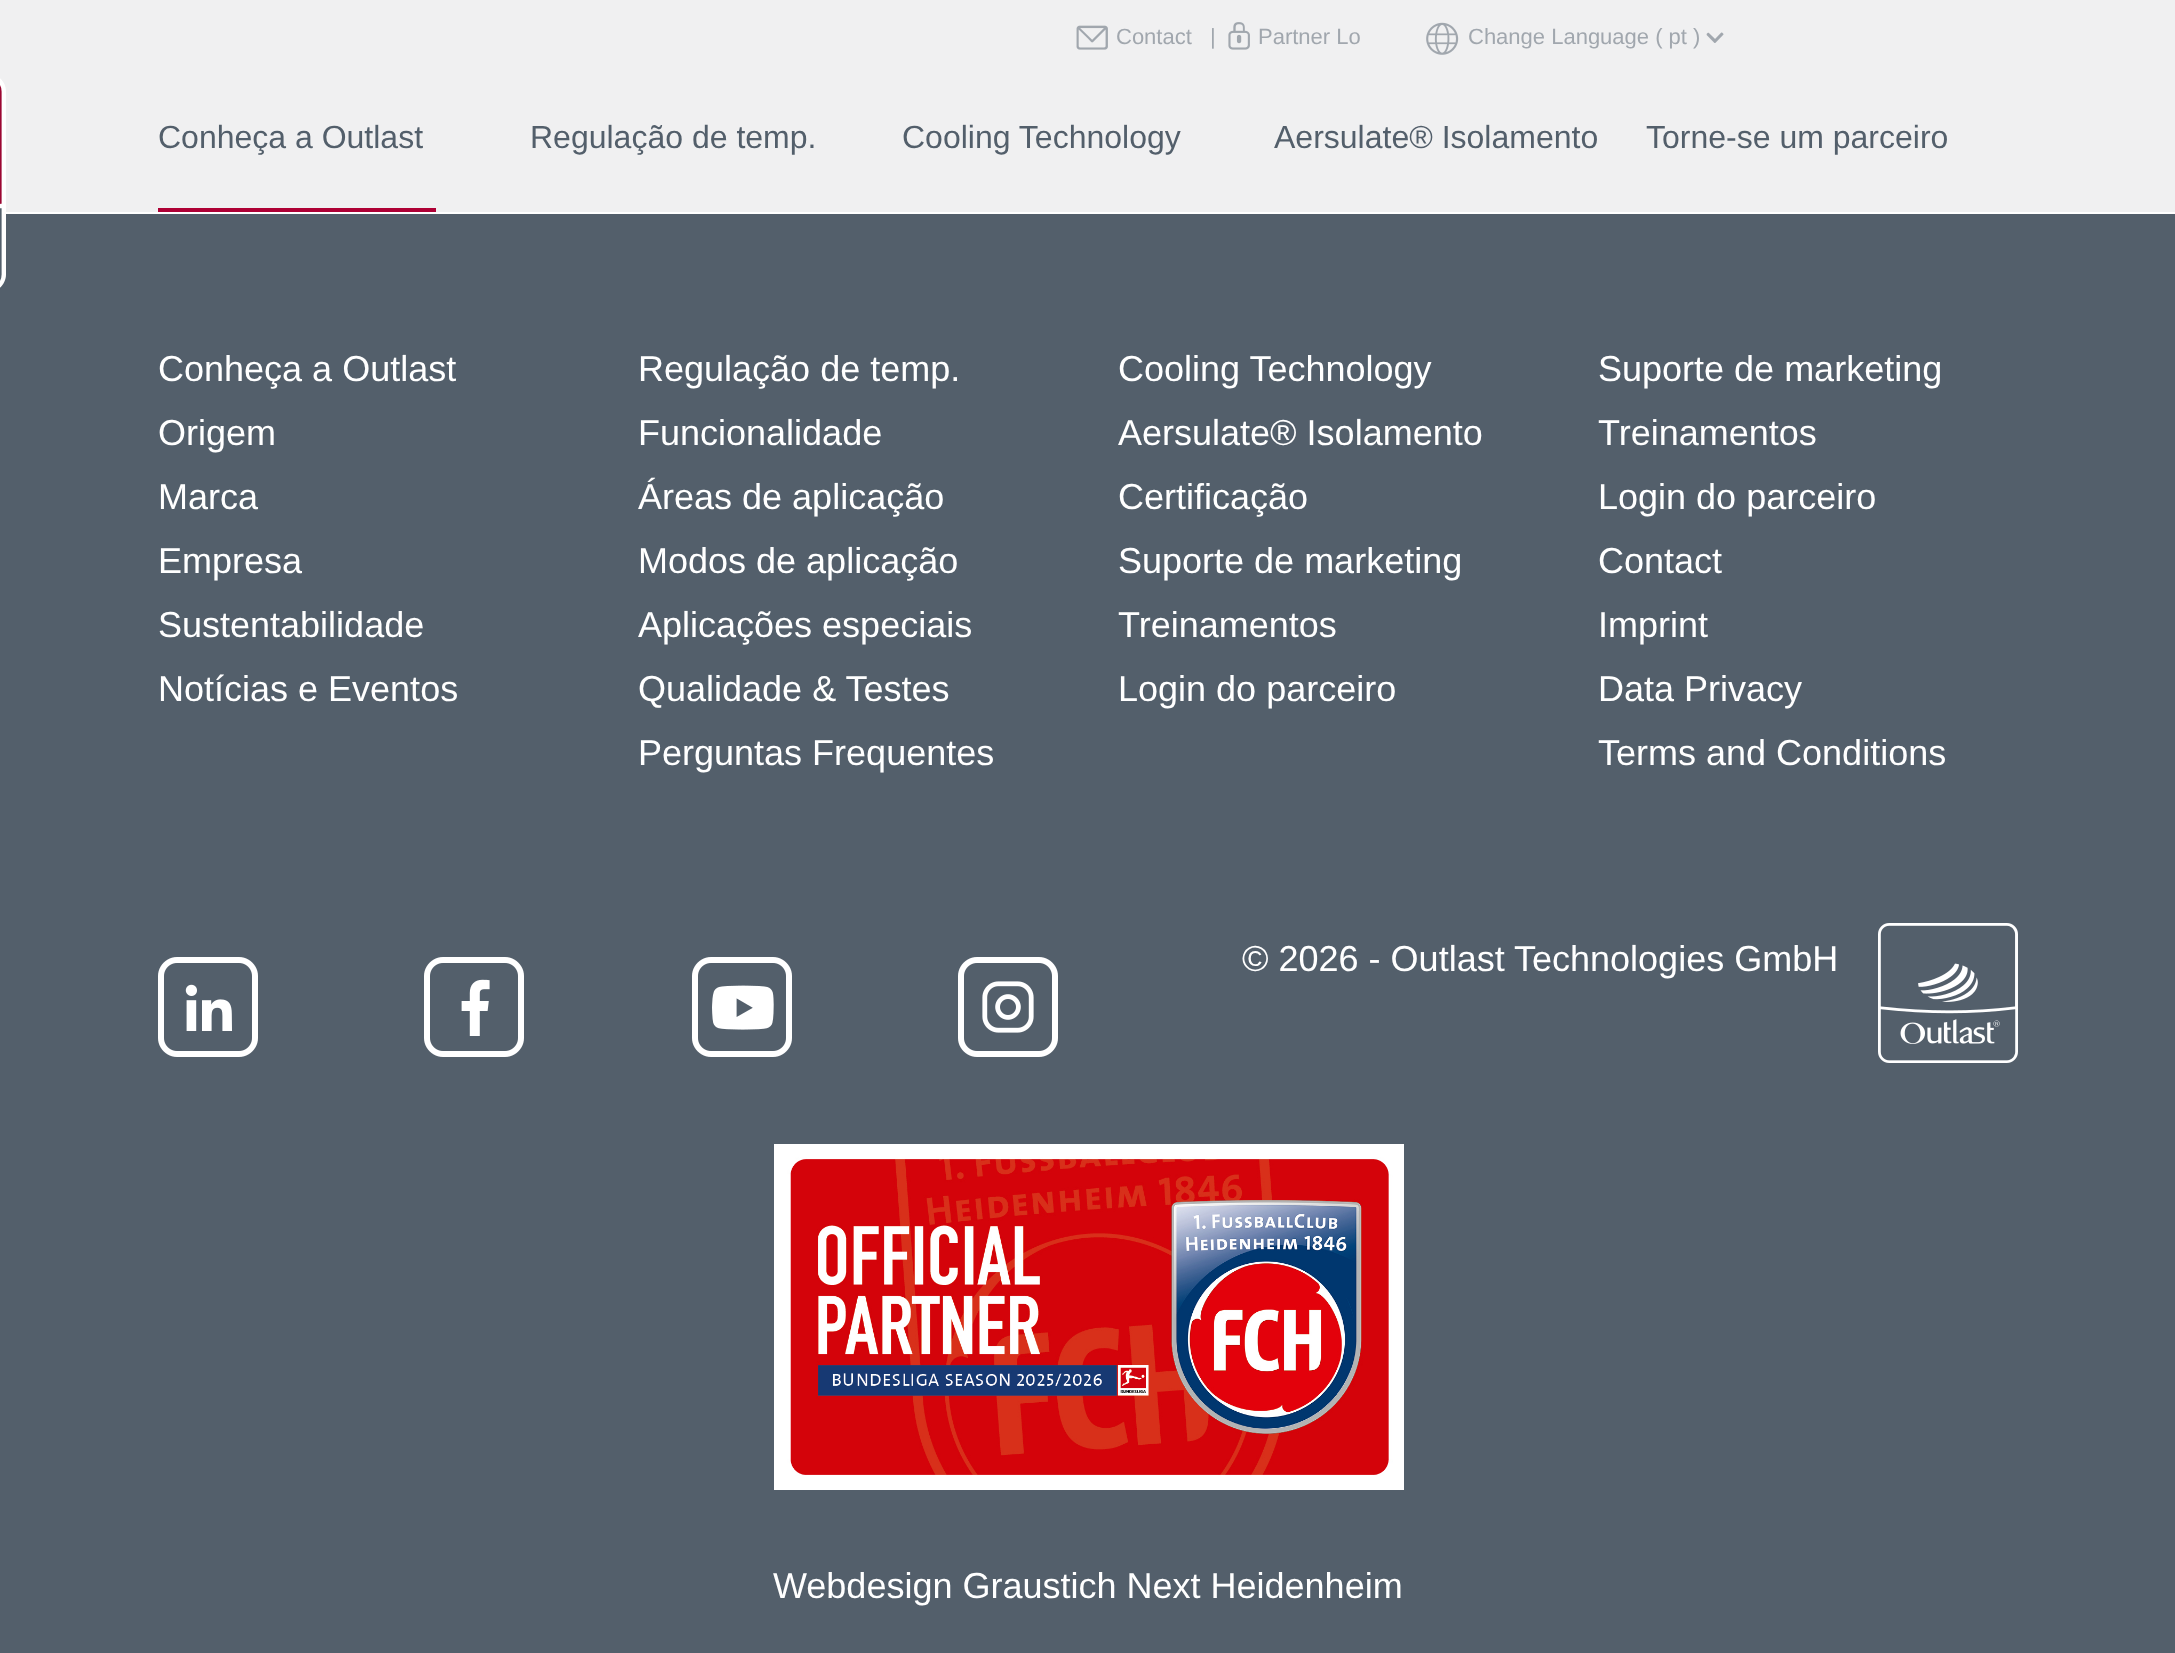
<!DOCTYPE html>
<meta charset="utf-8">
<style>body { margin: 0 } canvas { display: block }</style>
<canvas id="canvas" width="2175" height="1653"></canvas>
<script type="module">
  const canvas = document.getElementById("canvas");
  const g = canvas.getContext("2d");
  g.miterLimit = 4;
  g.fontKerning = "normal";
  function drawText(s, x, y, [font, color]) {
    g.font = font;
    g.fillStyle = color;
    g.fillText(s, x, y);
  }
  function fillBox(x, y, w, h, color) {
    g.fillStyle = color;
    g.fillRect(x, y, w, h);
  }
  async function drawPicture(src, x, y, w, h) {
    const img = new Image();
    img.src = src;
    await img.decode();
    g.drawImage(img, x, y, w, h);
  }

  const s1 = ["22px Liberation Sans", "#A1A7AE"];
  const s2 = ["32px Liberation Sans", "#535F6B"];
  const s3 = ["36px Liberation Sans", "#FFFFFF"];

  fillBox(0, 0, 2175, 1653, "#FFFFFF");
  fillBox(0, 0, 2175, 212, "#F0F0F1");
  await drawPicture("pic1.png", 1076, 25, 32, 25);
  drawText("Contact", 1116, 44, s1);
  drawText("|", 1210, 44, s1);
  await drawPicture("pic2.png", 1228, 22, 22, 28);
  drawText("Partner Lo", 1258, 44, s1);
  await drawPicture("pic3.png", 1426, 22, 33, 33);
  drawText("Change Language ( pt )", 1468, 44, s1);
  await drawPicture("pic4.png", 1706, 32, 18, 11);
  fillBox(0, 214, 2175, 1439, "#535F6B");
  await drawPicture("pic5.png", 0, 78, 6, 210);
  drawText("Conheça a Outlast", 158, 148, s2);
  drawText("Regulação de temp.", 530, 148, s2);
  drawText("Cooling Technology", 902, 148, s2);
  drawText("Aersulate® Isolamento", 1274, 148, s2);
  drawText("Torne-se um parceiro", 1646, 148, s2);
  fillBox(158, 208, 278, 4, "#AE0035");
  drawText("Conheça a Outlast", 158, 381, s3);
  drawText("Origem", 158, 445, s3);
  drawText("Marca", 158, 509, s3);
  drawText("Empresa", 158, 573, s3);
  drawText("Sustentabilidade", 158, 637, s3);
  drawText("Notícias e Eventos", 158, 701, s3);
  drawText("Regulação de temp.", 638, 381, s3);
  drawText("Funcionalidade", 638, 445, s3);
  drawText("Áreas de aplicação", 638, 509, s3);
  drawText("Modos de aplicação", 638, 573, s3);
  drawText("Aplicações especiais", 638, 637, s3);
  drawText("Qualidade & Testes", 638, 701, s3);
  drawText("Perguntas Frequentes", 638, 765, s3);
  drawText("Cooling Technology", 1118, 381, s3);
  drawText("Aersulate® Isolamento", 1118, 445, s3);
  drawText("Certificação", 1118, 509, s3);
  drawText("Suporte de marketing", 1118, 573, s3);
  drawText("Treinamentos", 1118, 637, s3);
  drawText("Login do parceiro", 1118, 701, s3);
  drawText("Suporte de marketing", 1598, 381, s3);
  drawText("Treinamentos", 1598, 445, s3);
  drawText("Login do parceiro", 1598, 509, s3);
  drawText("Contact", 1598, 573, s3);
  drawText("Imprint", 1598, 637, s3);
  drawText("Data Privacy", 1598, 701, s3);
  drawText("Terms and Conditions", 1598, 765, s3);
  await drawPicture("pic6.png", 158, 957, 100, 100);
  await drawPicture("pic7.png", 424, 957, 100, 100);
  await drawPicture("pic8.png", 692, 957, 100, 100);
  await drawPicture("pic9.png", 958, 957, 100, 100);
  drawText("© 2026 - Outlast Technologies GmbH", 1242, 971, s3);
  await drawPicture("pic10.png", 1878, 923, 140, 140);
  await drawPicture("pic11.png", 774, 1144, 630, 346);
  drawText("Webdesign Graustich Next Heidenheim", 773, 1598, s3);
</script>
